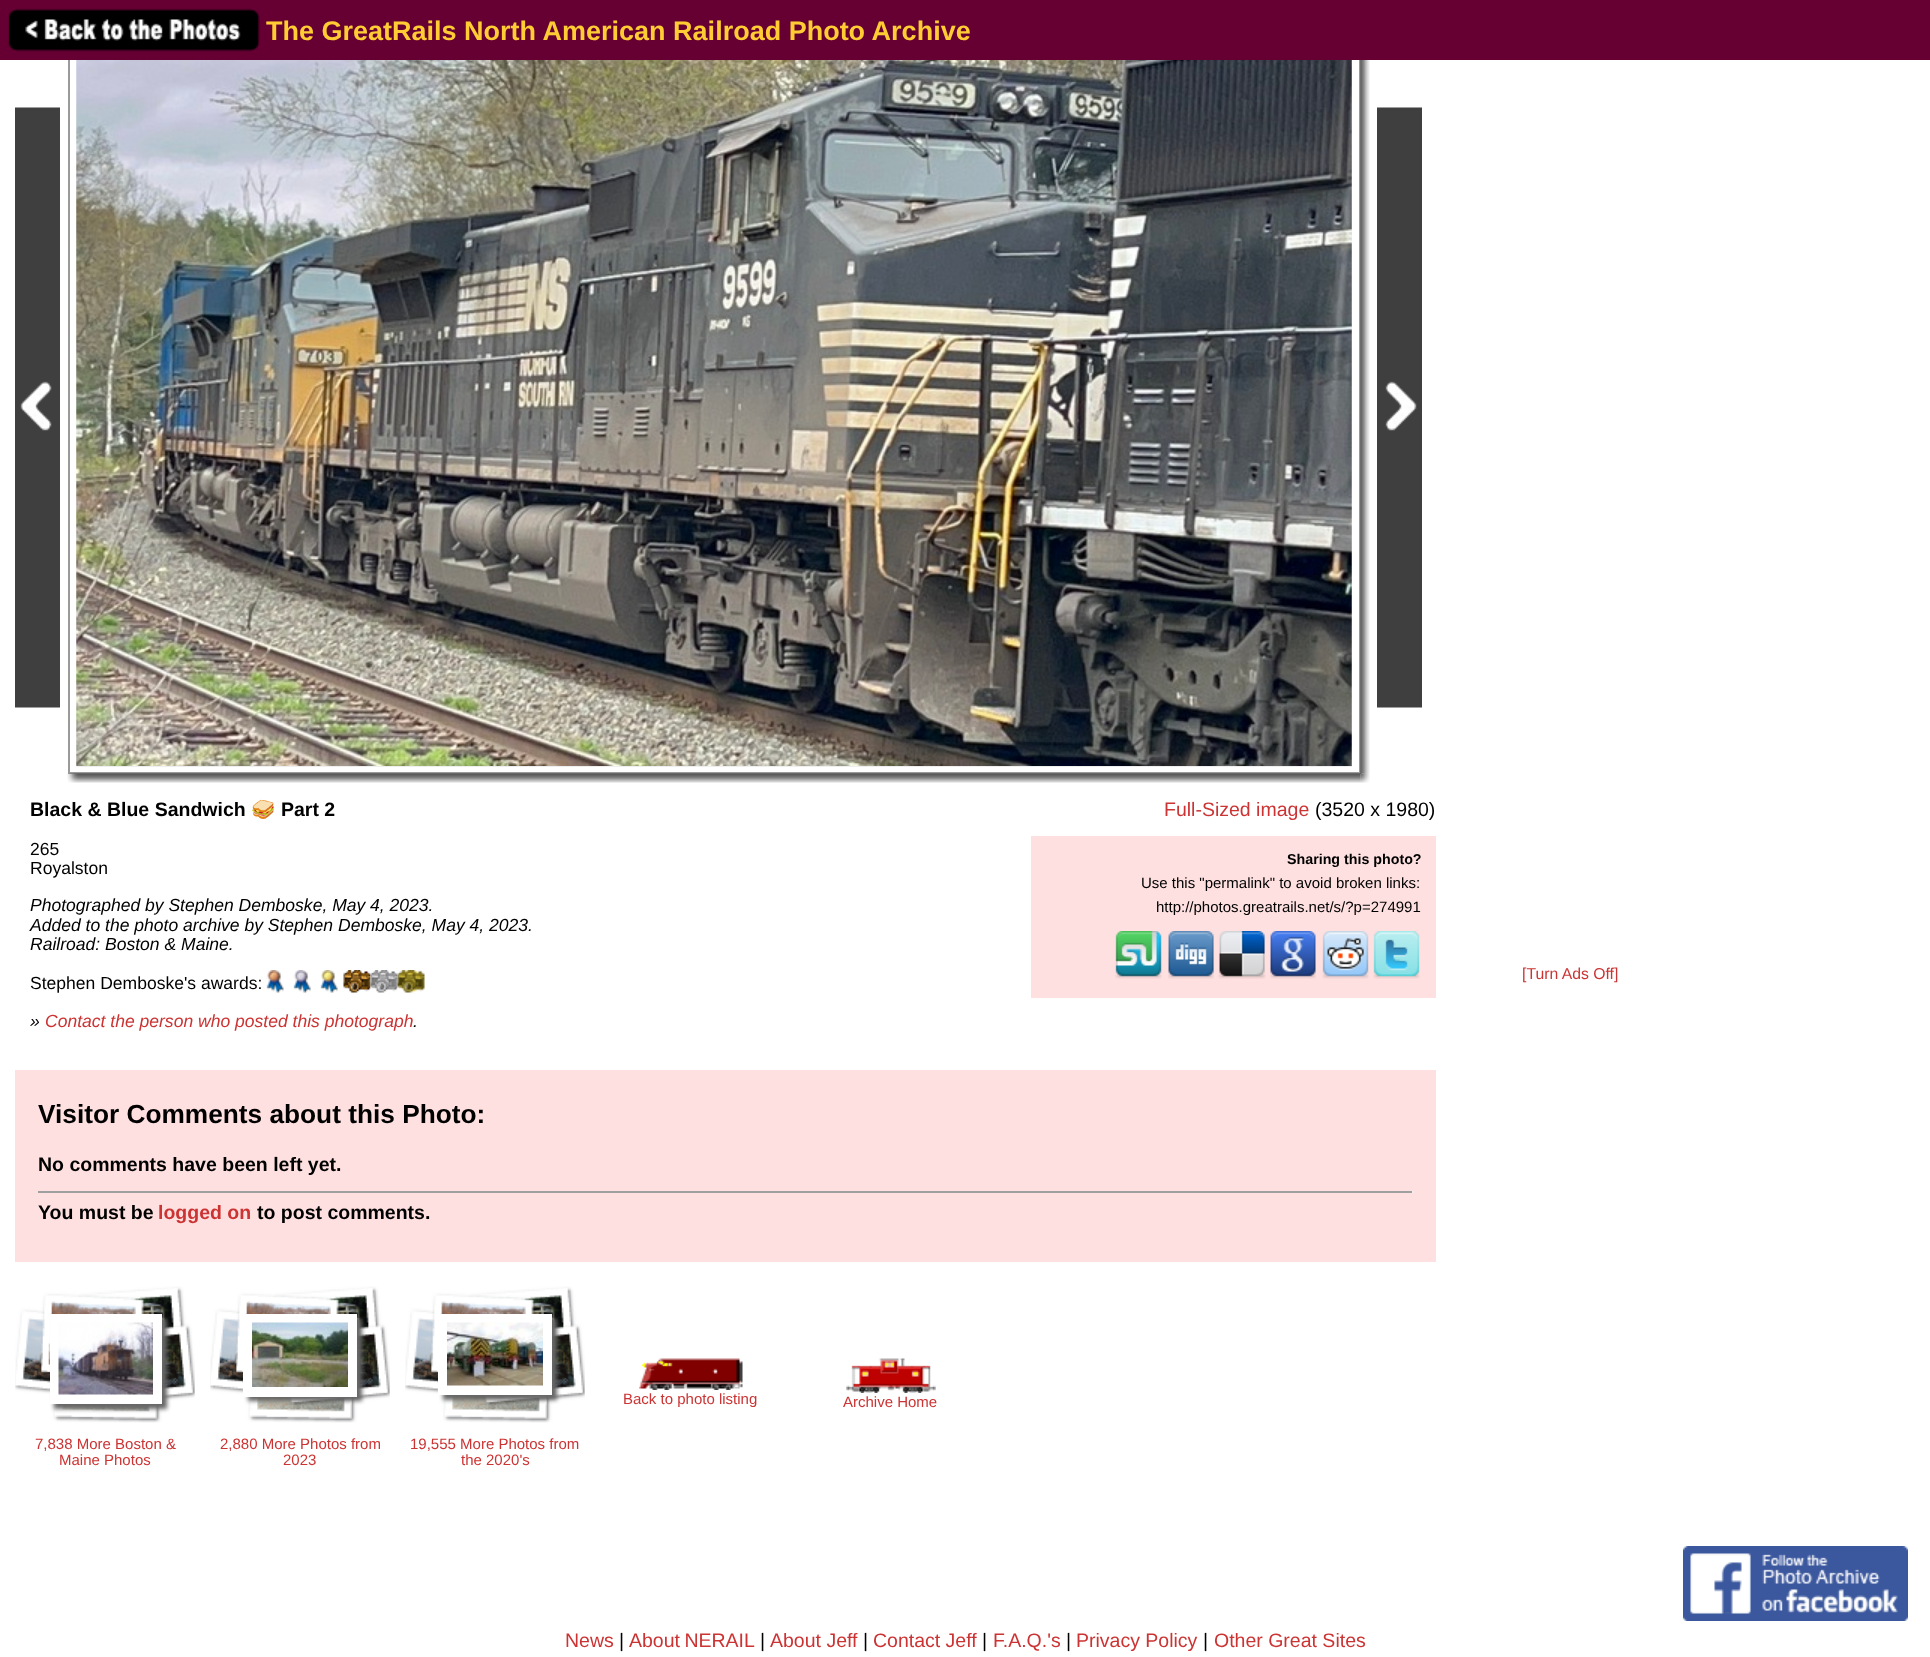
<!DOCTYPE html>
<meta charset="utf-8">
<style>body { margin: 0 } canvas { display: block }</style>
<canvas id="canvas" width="1930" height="1657"></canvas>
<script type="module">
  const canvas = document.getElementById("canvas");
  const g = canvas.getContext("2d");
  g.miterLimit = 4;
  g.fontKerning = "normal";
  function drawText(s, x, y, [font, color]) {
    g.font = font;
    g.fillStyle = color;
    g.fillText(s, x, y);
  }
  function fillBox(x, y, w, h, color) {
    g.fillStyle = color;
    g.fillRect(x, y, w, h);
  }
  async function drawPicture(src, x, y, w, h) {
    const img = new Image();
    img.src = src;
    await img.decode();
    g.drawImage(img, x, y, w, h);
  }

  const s1 = ["bold 27px Liberation Sans", "#FFCC33"];
  const s2 = ["bold 19.5px Liberation Sans", "#000000"];
  const s3 = ["bold 19.5px Noto Color Emoji", "#000000"];
  const s4 = ["17.55px Liberation Sans", "#000000"];
  const s5 = ["italic 17.55px Liberation Sans", "#000000"];
  const s6 = ["italic 17.55px Liberation Sans", "#CC3333"];
  const s7 = ["19.5px Liberation Sans", "#CC3333"];
  const s8 = ["19.5px Liberation Sans", "#000000"];
  const s9 = ["bold 14.25px Liberation Sans", "#000000"];
  const s10 = ["15px Liberation Sans", "#000000"];
  const s11 = ["15.75px Liberation Sans", "#CC3333"];
  const s12 = ["bold 26.25px Liberation Sans", "#000000"];
  const s13 = ["bold 19.5px Liberation Sans", "#CC3333"];
  const s14 = ["15px Liberation Sans", "#CC3333"];

  fillBox(0, 0, 1930, 1657, "#FFFFFF");
  g.strokeStyle = "#9A9A9A";
  g.lineWidth = 2;
  g.strokeRect(69, 43, 1291, 730);
  fillBox(0, 0, 1930, 60, "#660033");
  await drawPicture("pic1.png", 8, 8, 252, 44);
  drawText("The GreatRails North American Railroad Photo Archive", 266, 40, s1);
  await drawPicture("pic2.png", 15, 107, 45, 601);
  fillBox(77, 60, 1275, 707, "#EEEEEE");
  await drawPicture("pic3.png", 76, 60, 1276, 706);
  await drawPicture("pic4.png", 76, 60, 1276, 706);
  await drawPicture("pic5.png", 1360, 60, 10, 714);
  await drawPicture("pic6.png", 1377, 107, 45, 601);
  await drawPicture("pic7.png", 67, 773, 1294, 10);
  await drawPicture("pic8.png", 1360, 773, 10, 10);
  drawText("Black & Blue Sandwich", 30, 816, s2);
  drawText("🥪", 251, 816, s3);
  drawText("Part 2", 281, 816, s2);
  drawText("265", 30, 855, s4);
  drawText("Royalston", 30, 874, s4);
  drawText("Photographed by Stephen Demboske, May 4, 2023.", 30, 911, s5);
  drawText("Added to the photo archive by Stephen Demboske, May 4, 2023.", 30, 931, s5);
  drawText("Railroad: Boston & Maine.", 30, 950, s5);
  drawText("Stephen Demboske's awards:", 30, 989, s4);
  await drawPicture("pic9.png", 266, 970, 18, 23);
  await drawPicture("pic10.png", 293, 970, 18, 23);
  await drawPicture("pic11.png", 320, 970, 18, 23);
  await drawPicture("pic12.png", 343, 970, 28, 23);
  await drawPicture("pic13.png", 370, 970, 28, 23);
  await drawPicture("pic14.png", 397, 970, 28, 23);
  drawText("»", 30, 1027, s5);
  drawText("Contact the person who posted this photograph", 45, 1027, s6);
  drawText(".", 413, 1027, s5);
  drawText("Full-Sized image", 1164, 816, s7);
  drawText("(3520 x 1980)", 1315, 816, s8);
  fillBox(1031, 836, 405, 162, "#FFE0E0");
  drawText("Sharing this photo?", 1287, 864, s9);
  drawText("Use this \"permalink\" to avoid broken links:", 1141, 888, s10);
  drawText("http://photos.greatrails.net/s/?p=274991", 1156, 912, s10);
  await drawPicture("pic15.png", 1115, 931, 47, 48);
  await drawPicture("pic16.png", 1168, 931, 46, 48);
  await drawPicture("pic17.png", 1218, 931, 48, 48);
  await drawPicture("pic18.png", 1270, 931, 46, 48);
  await drawPicture("pic19.png", 1322, 931, 47, 48);
  await drawPicture("pic20.png", 1373, 931, 47, 48);
  drawText("[Turn Ads Off]", 1522, 979, s11);
  fillBox(15, 1070, 1421, 192, "#FFE0E0");
  drawText("Visitor Comments about this Photo:", 38, 1123, s12);
  drawText("No comments have been left yet.", 38, 1171, s2);
  fillBox(38, 1191, 1375, 2, "#9F9F9F");
  fillBox(1412, 1191, 2, 2, "#EEEEEE");
  drawText("You must be", 38, 1219, s2);
  drawText("logged on", 158, 1219, s13);
  drawText("to post comments.", 257, 1219, s2);
  await drawPicture("pic21.png", 639, 1358, 104, 32);
  drawText("Back to photo listing", 623, 1404, s14);
  await drawPicture("pic22.png", 846, 1358, 90, 35);
  drawText("Archive Home", 843, 1407, s14);
  await drawPicture("pic23.png", 15, 1286, 180, 137);
  g.fillStyle = "#666666";
  g.filter = "blur(2px)";
  g.beginPath();
  g.rect(54, 1319, 113, 90);
  g.fill();
  g.filter = "none";
  fillBox(50, 1314, 112, 90, "#FFFFFF");
  await drawPicture("pic24.png", 58, 1322, 95, 73);
  drawText("7,838 More Boston &", 35, 1449, s14);
  drawText("Maine Photos", 59, 1465, s14);
  await drawPicture("pic23.png", 210, 1286, 180, 137);
  g.fillStyle = "#666666";
  g.filter = "blur(2px)";
  g.beginPath();
  g.rect(248, 1319, 114, 82);
  g.fill();
  g.filter = "none";
  fillBox(243, 1314, 114, 83, "#FFFFFF");
  await drawPicture("pic25.png", 252, 1322, 96, 65);
  drawText("2,880 More Photos from", 220, 1449, s14);
  drawText("2023", 283, 1465, s14);
  await drawPicture("pic26.png", 405, 1286, 180, 137);
  g.fillStyle = "#666666";
  g.filter = "blur(2px)";
  g.beginPath();
  g.rect(443, 1319, 114, 81);
  g.fill();
  g.filter = "none";
  fillBox(438, 1314, 114, 81, "#FFFFFF");
  await drawPicture("pic27.png", 447, 1322, 96, 64);
  drawText("19,555 More Photos from", 410, 1449, s14);
  drawText("the 2020's", 461, 1465, s14);
  await drawPicture("pic28.png", 1683, 1546, 225, 75);
  drawText("News", 565, 1647, s7);
  drawText("|", 619, 1647, s8);
  g.wordSpacing = "-1px";
  drawText("About NERAIL", 629, 1647, s7);
  g.wordSpacing = "0px";
  drawText("|", 760, 1647, s8);
  drawText("About Jeff", 770, 1647, s7);
  drawText("|", 863, 1647, s8);
  drawText("Contact Jeff", 873, 1647, s7);
  drawText("|", 982, 1647, s8);
  drawText("F.A.Q.'s", 993, 1647, s7);
  drawText("|", 1066, 1647, s8);
  drawText("Privacy Policy", 1076, 1647, s7);
  drawText("|", 1203, 1647, s8);
  drawText("Other Great Sites", 1214, 1647, s7);
</script>
